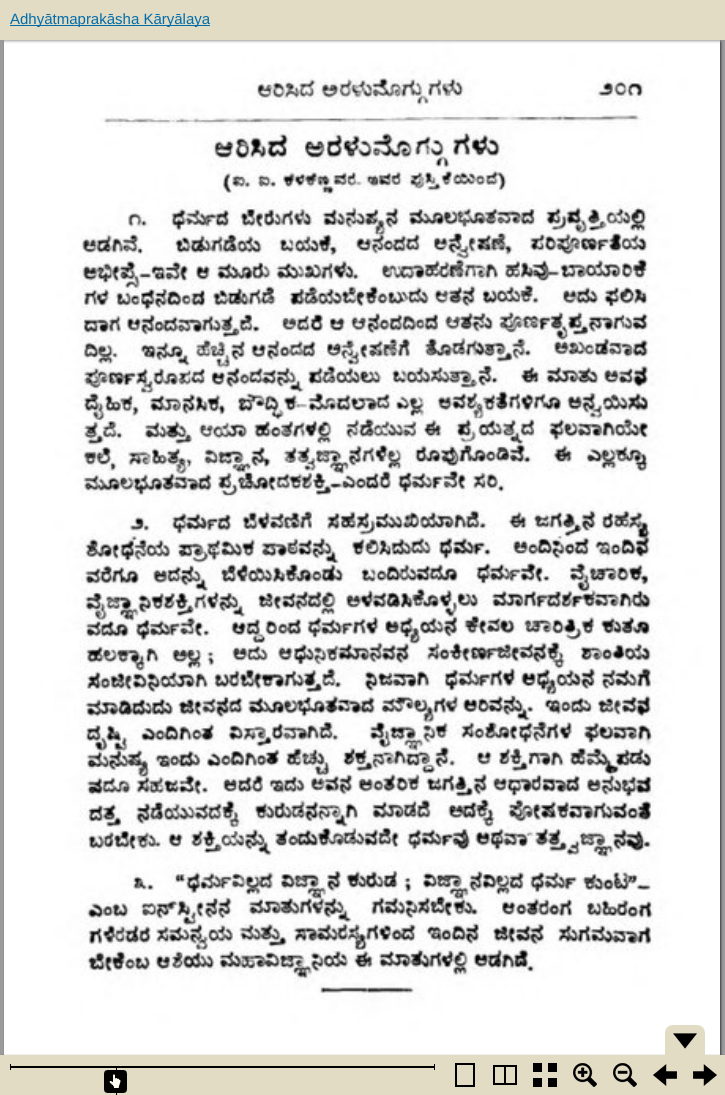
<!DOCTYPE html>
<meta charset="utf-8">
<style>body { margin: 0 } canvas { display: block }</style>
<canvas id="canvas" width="725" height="1095"></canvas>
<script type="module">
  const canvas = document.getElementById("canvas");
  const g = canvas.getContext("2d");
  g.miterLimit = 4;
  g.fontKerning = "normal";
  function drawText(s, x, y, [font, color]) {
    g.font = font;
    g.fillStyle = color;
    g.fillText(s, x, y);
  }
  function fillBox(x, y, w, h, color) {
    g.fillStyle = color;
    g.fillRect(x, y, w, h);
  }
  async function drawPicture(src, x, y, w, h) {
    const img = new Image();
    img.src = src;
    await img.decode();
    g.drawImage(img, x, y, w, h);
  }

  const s1 = ["15px Liberation Sans", "#036DAA"];

  fillBox(0, 0, 725, 1095, "#9A9B9D");
  g.fillStyle = "#333333";
  g.filter = "blur(1px)";
  g.beginPath();
  g.rect(5, 6, 716, 1075);
  g.fill();
  g.filter = "none";
  await drawPicture("pic1.png", 4, 40, 716, 1015);
  g.fillStyle = "#999999";
  g.filter = "blur(1.5px)";
  g.beginPath();
  g.rect(0, 1, 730, 40);
  g.fill();
  g.filter = "none";
  fillBox(0, 0, 725, 40, "#E2DCC5");
  fillBox(10, 25, 200, 1, "#036DAA");
  drawText("Adhyātmaprakāsha Kāryālaya", 10, 24, s1);
  g.fillStyle = "#333333";
  g.filter = "blur(1px)";
  g.beginPath();
  g.rect(1, 1056, 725, 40);
  g.fill();
  g.filter = "none";
  fillBox(0, 1055, 725, 40, "#E2DCC5");
  g.beginPath();
  g.roundRect(665, 1025, 40, 30, [8, 8, 0, 0]);
  g.fill();
  await drawPicture("pic2.png", 673, 1033, 24, 16);
  fillBox(10, 1066, 425, 2, "#000000");
  fillBox(10, 1064, 1, 6, "#000000");
  fillBox(434, 1064, 1, 6, "#000000");
  await drawPicture("pic3.png", 104, 1068, 23, 27);
  await drawPicture("pic4.png", 455, 1063, 20, 24);
  await drawPicture("pic5.png", 493, 1065, 24, 20);
  await drawPicture("pic6.png", 533, 1063, 24, 24);
  await drawPicture("pic7.png", 573, 1063, 24, 24);
  await drawPicture("pic8.png", 613, 1063, 24, 24);
  await drawPicture("pic9.png", 653, 1064, 24, 22);
  await drawPicture("pic10.png", 693, 1064, 24, 22);
</script>
